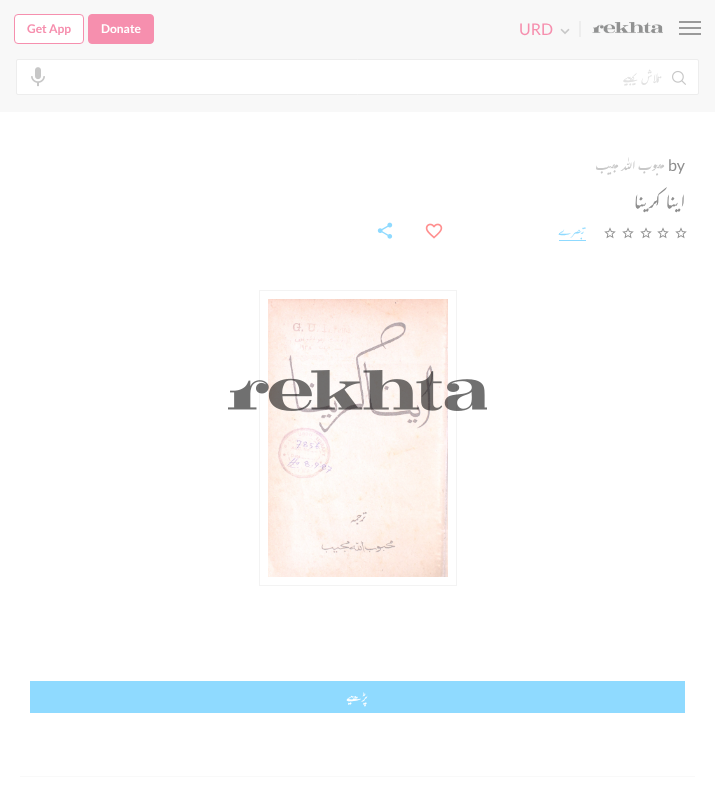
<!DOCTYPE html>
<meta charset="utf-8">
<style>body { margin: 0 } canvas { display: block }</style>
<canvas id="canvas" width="715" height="790"></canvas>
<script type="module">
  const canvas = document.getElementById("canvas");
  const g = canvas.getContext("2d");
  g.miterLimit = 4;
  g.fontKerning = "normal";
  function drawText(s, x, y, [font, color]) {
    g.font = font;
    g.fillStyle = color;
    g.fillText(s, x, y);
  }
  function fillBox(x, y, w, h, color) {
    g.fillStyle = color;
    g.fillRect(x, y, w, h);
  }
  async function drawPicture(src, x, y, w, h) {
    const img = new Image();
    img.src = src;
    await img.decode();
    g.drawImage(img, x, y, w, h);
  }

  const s1 = ["16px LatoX", "#F68FAE"];
  const s2 = ["bold 12px LatoX", "#FFFFFF"];
  const s3 = ["bold 12px LatoX", "#F68FAE"];
  const s4 = ["14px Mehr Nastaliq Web", "#E2E2E2"];
  const s5 = ["16px LatoX", "#8F8F8F"];
  const s6 = ["16px Mehr Nastaliq Web", "#C8C8C8"];
  const s7 = ["22px Mehr Nastaliq Web", "#8F8F8F"];
  const s8 = ["12px Mehr Nastaliq Web", "#8FDAFF"];
  const s9 = ["14px Mehr Nastaliq Web", "#FFFFFF"];

  fillBox(0, 0, 715, 790, "#FFFFFF");
  fillBox(0, 0, 715, 112, "#F8F8F8");
  fillBox(679, 21, 22, 2, "#9A9A9A");
  fillBox(679, 27, 22, 2, "#9A9A9A");
  fillBox(679, 33, 22, 2, "#9A9A9A");
  await drawPicture("pic1.png", 592, 22, 71, 12);
  fillBox(579, 21, 2, 16, "#EDEDED");
  await drawPicture("pic2.png", 560, 28, 10, 7);
  drawText("URD", 519, 35, s1);
  g.beginPath();
  g.roundRect(88.5, 14.5, 65, 29, 3.5);
  g.fill();
  g.strokeStyle = "#F68FAE";
  g.stroke();
  drawText("Donate", 101, 33, s2);
  g.beginPath();
  g.roundRect(14.5, 14.5, 69, 29, 3.5);
  g.fill();
  g.stroke();
  drawText("Get App", 27, 33, s3);
  g.fillStyle = "#FFFFFF";
  g.beginPath();
  g.roundRect(16.5, 59.5, 682, 35, 1.5);
  g.fill();
  g.strokeStyle = "#EDEDED";
  g.stroke();
  await drawPicture("pic3.png", 672, 70, 14, 15);
  g.wordSpacing = "2px";
  g.direction = "rtl";
  drawText("تلاش کیجیے", 662, 83, s4);
  await drawPicture("pic4.png", 31, 67, 14, 20);
  g.wordSpacing = "0px";
  g.direction = "ltr";
  drawText("by", 668, 171, s5);
  g.wordSpacing = "2px";
  g.direction = "rtl";
  drawText("محبوب اللہ مجیب", 665, 171, s6);
  g.wordSpacing = "4px";
  drawText("اینا کرینا", 685, 209, s7);
  await drawPicture("pic5.png", 675, 227, 12, 12);
  await drawPicture("pic5.png", 657, 227, 12, 12);
  await drawPicture("pic5.png", 640, 227, 12, 12);
  await drawPicture("pic5.png", 622, 227, 12, 12);
  await drawPicture("pic5.png", 604, 227, 12, 12);
  fillBox(559, 240, 27, 1, "#8FDAFF");
  g.wordSpacing = "0px";
  drawText("تبصرے", 586, 236, s8);
  await drawPicture("pic6.png", 425, 223, 18, 16);
  await drawPicture("pic7.png", 377, 222, 16, 17);
  fillBox(30, 681, 655, 32, "#8FDAFF");
  drawText("پڑھیے", 368, 702, s9);
  g.strokeStyle = "#F3F3F3";
  g.strokeRect(259.5, 290.5, 197, 295);
  await drawPicture("pic8.png", 268, 299, 180, 278);
  await drawPicture("pic9.png", 228, 370, 259, 41);
  fillBox(20, 776, 675, 1, "#F9F9F9");
</script>
